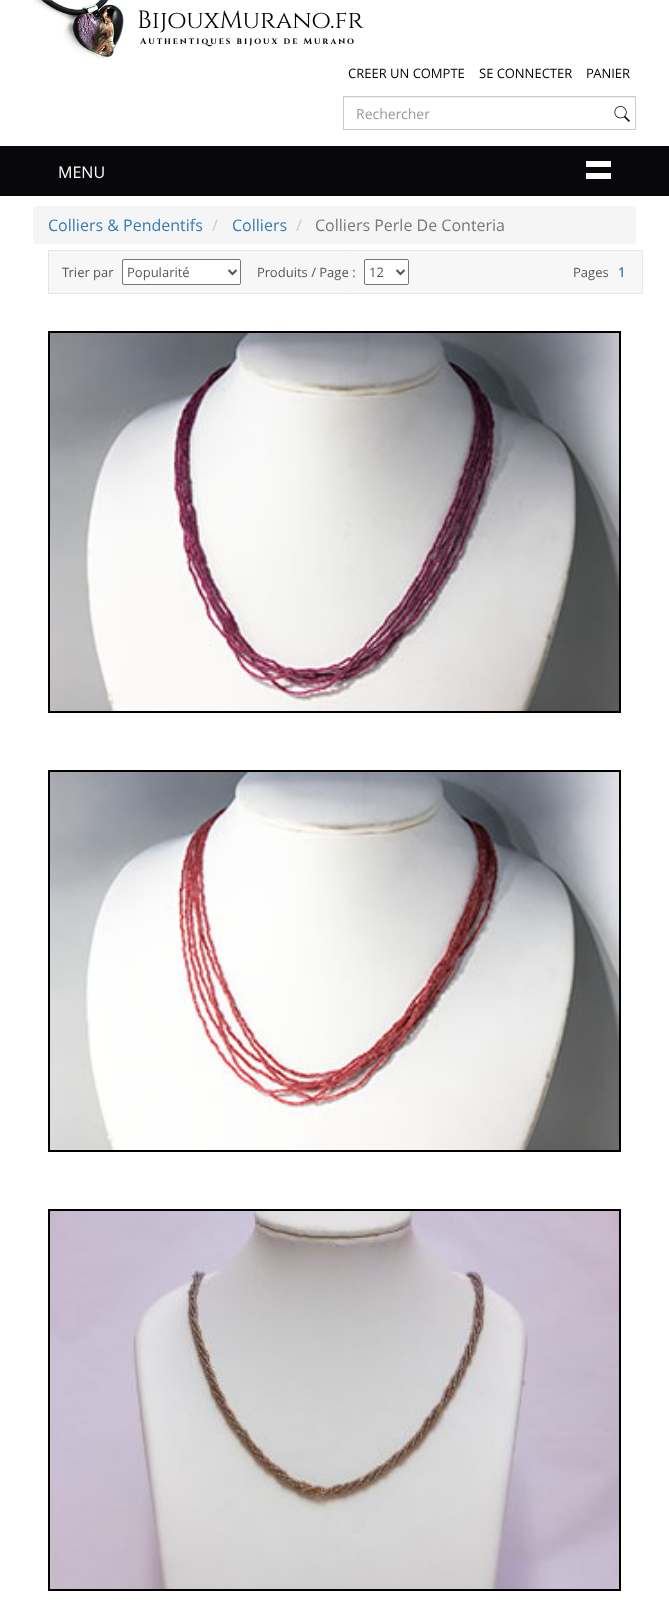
<!DOCTYPE html>
<meta charset="utf-8">
<style>body { margin: 0 } canvas { display: block }</style>
<canvas id="canvas" width="669" height="1622"></canvas>
<script type="module">
  const canvas = document.getElementById("canvas");
  const g = canvas.getContext("2d");
  g.miterLimit = 4;
  g.fontKerning = "normal";
  function drawText(s, x, y, [font, color]) {
    g.font = font;
    g.fillStyle = color;
    g.fillText(s, x, y);
  }
  function fillBox(x, y, w, h, color) {
    g.fillStyle = color;
    g.fillRect(x, y, w, h);
  }
  function fillRounded(x, y, w, h, r, color) {
    g.fillStyle = color;
    g.beginPath();
    g.roundRect(x, y, w, h, r);
    g.fill();
  }
  async function drawPicture(src, x, y, w, h) {
    const img = new Image();
    img.src = src;
    await img.decode();
    g.drawImage(img, x, y, w, h);
  }

  const s1 = ["25px Cinzel", "#000000"];
  const s2 = ["bold 9px Cinzel", "#000000"];
  const s3 = ["13px Open Sans", "#000000"];
  const s4 = ["14px Open Sans", "#999999"];
  const s5 = ["16px Open Sans", "#FFFFFF"];
  const s6 = ["16px Open Sans", "#337AB7"];
  const s7 = ["16px Open Sans", "#CCCCCC"];
  const s8 = ["16px Open Sans", "#777777"];
  const s9 = ["13px Open Sans", "#555555"];
  const s10 = ["bold 13px Open Sans", "#2980B9"];

  fillBox(0, 0, 669, 1622, "#FFFFFF");
  await drawPicture("pic1.png", 33, 0, 91, 60);
  drawText("BijouxMurano", 137, 28, s1);
  drawText(".fr", 330, 28, s1);
  g.letterSpacing = "2px";
  drawText("Authentiques bijoux de Murano", 140, 44, s2);
  g.letterSpacing = "0px";
  drawText("CREER UN COMPTE", 348, 78, s3);
  drawText("SE CONNECTER", 479, 78, s3);
  drawText("PANIER", 586, 78, s3);
  fillBox(344, 97, 291, 1, "#ECECEC");
  g.strokeStyle = "#CCCCCC";
  g.strokeRect(343.5, 96.5, 292, 33);
  drawText("Rechercher", 356, 119, s4);
  await drawPicture("pic2.png", 614, 106, 16, 16);
  fillBox(0, 146, 669, 50, "#08080B");
  fillBox(586, 161, 25, 6, "#FFFFFF");
  drawText("MENU", 58, 178, s5);
  fillBox(586, 173, 25, 6, "#FFFFFF");
  fillRounded(33, 206, 603, 38, 4, "#F5F5F5");
  drawText("Colliers & Pendentifs", 48, 231, s6);
  drawText("/", 212, 231, s7);
  drawText("Colliers", 232, 231, s6);
  drawText("/", 296, 231, s7);
  drawText("Colliers Perle De Conteria", 315, 231, s8);
  g.fillStyle = "#F7F7F7";
  g.beginPath();
  g.rect(48.5, 250.5, 594, 43);
  g.fill();
  g.strokeStyle = "#E6E6E6";
  g.stroke();
  drawText("Trier par", 62, 277, s9);
  g.fillStyle = "#FFFFFF";
  g.beginPath();
  g.roundRect(122.5, 259.5, 118, 25, 1.5);
  g.fill();
  g.strokeStyle = "#767676";
  g.stroke();
  g.beginPath();
  g.moveTo(228.5, 270);
  g.lineTo(232.5, 274);
  g.lineTo(236.5, 270);
  g.strokeStyle = "#555555";
  g.lineWidth = 2;
  g.stroke();
  drawText("Popularité", 127, 277, s9);
  drawText("Produits / Page :", 257, 277, s9);
  g.fillStyle = "#FFFFFF";
  g.beginPath();
  g.roundRect(364.5, 259.5, 44, 25, 1.5);
  g.fill();
  g.strokeStyle = "#767676";
  g.lineWidth = 1;
  g.stroke();
  g.beginPath();
  g.moveTo(396.5, 270);
  g.lineTo(400.5, 274);
  g.lineTo(404.5, 270);
  g.strokeStyle = "#555555";
  g.lineWidth = 2;
  g.stroke();
  drawText("12", 369, 277, s9);
  drawText("Pages", 573, 277, s9);
  drawText("1", 618, 277, s10);
  g.strokeStyle = "#000000";
  g.strokeRect(49, 332, 571, 380);
  await drawPicture("pic3.png", 50, 333, 569, 378);
  g.strokeRect(49, 771, 571, 380);
  await drawPicture("pic4.png", 50, 772, 569, 378);
  g.strokeRect(49, 1210, 571, 380);
  await drawPicture("pic5.png", 50, 1211, 569, 378);
</script>
